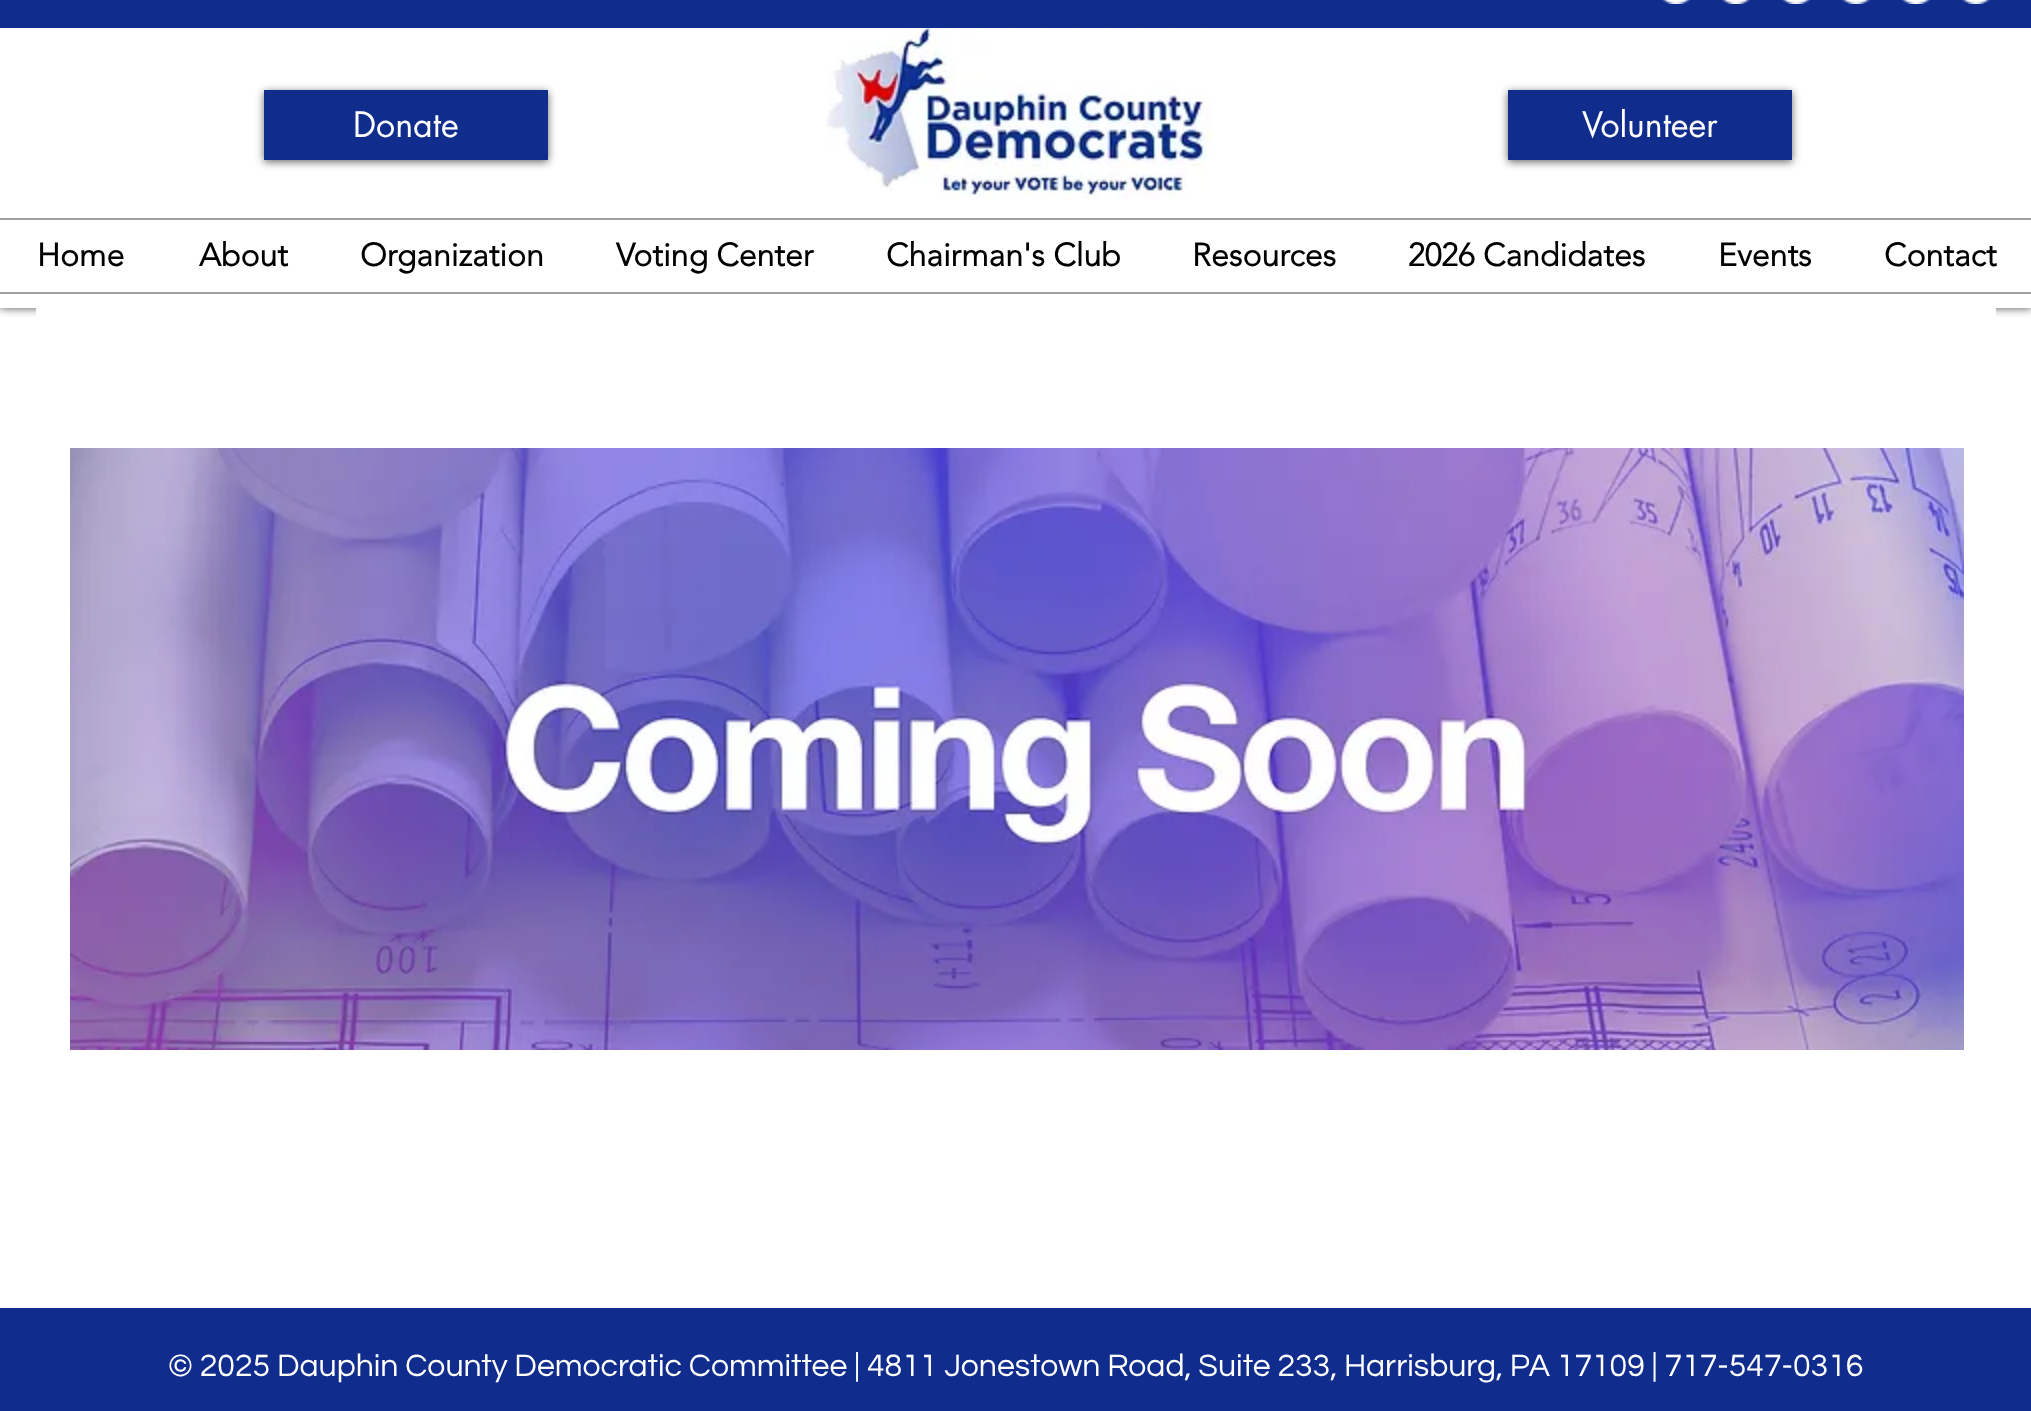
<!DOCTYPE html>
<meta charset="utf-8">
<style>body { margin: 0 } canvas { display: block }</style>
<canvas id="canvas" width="2031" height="1411"></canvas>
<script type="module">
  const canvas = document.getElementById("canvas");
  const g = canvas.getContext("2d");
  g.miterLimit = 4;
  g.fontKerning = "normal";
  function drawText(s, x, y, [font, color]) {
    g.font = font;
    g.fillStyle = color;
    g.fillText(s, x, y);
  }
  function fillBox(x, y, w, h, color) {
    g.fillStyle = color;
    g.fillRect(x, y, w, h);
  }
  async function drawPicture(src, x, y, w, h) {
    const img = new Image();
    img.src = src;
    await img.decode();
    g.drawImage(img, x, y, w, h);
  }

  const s1 = ["34px futura", "#FFFFFF"];
  const s2 = ["bold 32px 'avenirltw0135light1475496'", "#000000"];
  const s3 = ["32px Questrial", "#FFFFFF"];

  fillBox(0, 0, 2031, 1411, "#FFFFFF");
  g.save();
  g.beginPath();
  g.rect(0, 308, 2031, 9);
  g.clip();
  g.fillStyle = "rgba(0, 0, 0, 0.7)";
  g.filter = "blur(5px)";
  g.beginPath();
  g.rect(0, -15, 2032, 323);
  g.fill();
  g.filter = "none";
  g.restore();
  fillBox(0, 0, 2031, 28, "#102C8D");
  await drawPicture("pic1.png", 1661, 0, 30, 4);
  await drawPicture("pic2.png", 1721, 0, 30, 4);
  await drawPicture("pic3.png", 1781, 0, 30, 4);
  await drawPicture("pic4.png", 1841, 0, 30, 4);
  await drawPicture("pic5.png", 1901, 0, 30, 4);
  await drawPicture("pic6.png", 1961, 0, 30, 4);
  g.fillStyle = "rgba(0, 0, 0, 0.6)";
  g.filter = "blur(4px)";
  g.beginPath();
  g.rect(264, 92, 284, 70);
  g.fill();
  g.filter = "none";
  fillBox(264, 90, 284, 70, "#102C8D");
  drawText("Donate", 353, 137, s1);
  await drawPicture("pic7.png", 826, 28, 387, 171);
  g.fillStyle = "rgba(0, 0, 0, 0.6)";
  g.filter = "blur(4px)";
  g.beginPath();
  g.rect(1508, 92, 284, 70);
  g.fill();
  g.filter = "none";
  fillBox(1508, 90, 284, 70, "#102C8D");
  drawText("Volunteer", 1582, 137, s1);
  fillBox(0, 218, 2031, 2, "#A0A09F");
  drawText("Home", 37, 266, s2);
  drawText("About", 199, 266, s2);
  drawText("Organization", 360, 266, s2);
  drawText("Voting Center", 616, 266, s2);
  drawText("Chairman's Club", 886, 266, s2);
  drawText("Resources", 1192, 266, s2);
  drawText("2026 Candidates", 1408, 266, s2);
  drawText("Events", 1718, 266, s2);
  drawText("Contact", 1884, 266, s2);
  fillBox(0, 292, 2031, 2, "#A0A09F");
  fillBox(36, 308, 1960, 11, "#FFFFFF");
  await drawPicture("pic8.png", 70, 448, 1894, 602);
  fillBox(0, 1308, 2031, 103, "#102C8D");
  drawText("© 2025 Dauphin County Democratic Committee | 4811 Jonestown Road, Suite 233, Harrisburg, PA 17109 | 717-547-0316", 168, 1376, s3);
</script>
